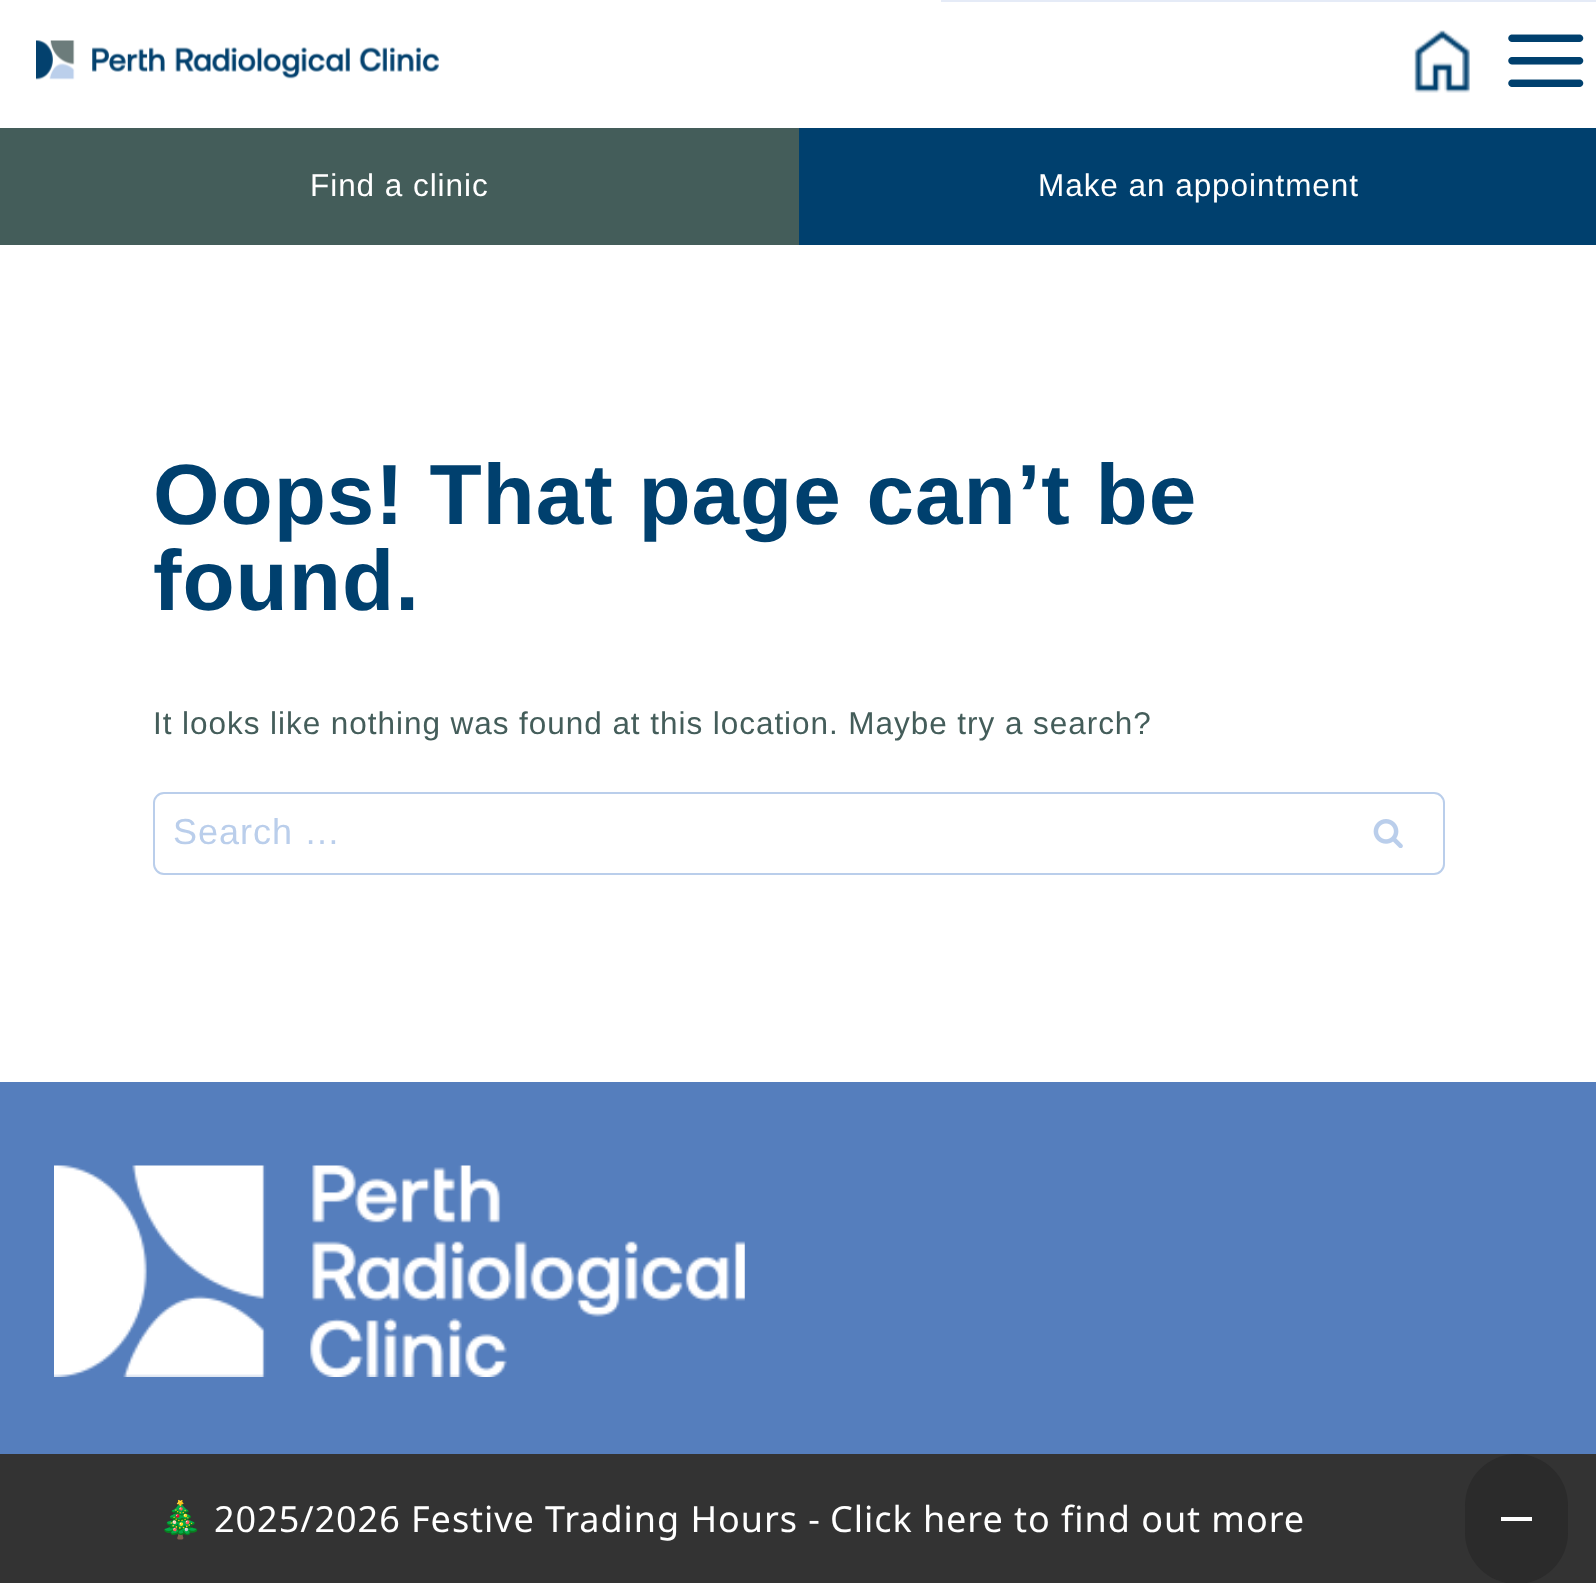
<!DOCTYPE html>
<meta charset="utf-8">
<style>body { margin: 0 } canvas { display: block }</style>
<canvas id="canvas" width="1596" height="1583"></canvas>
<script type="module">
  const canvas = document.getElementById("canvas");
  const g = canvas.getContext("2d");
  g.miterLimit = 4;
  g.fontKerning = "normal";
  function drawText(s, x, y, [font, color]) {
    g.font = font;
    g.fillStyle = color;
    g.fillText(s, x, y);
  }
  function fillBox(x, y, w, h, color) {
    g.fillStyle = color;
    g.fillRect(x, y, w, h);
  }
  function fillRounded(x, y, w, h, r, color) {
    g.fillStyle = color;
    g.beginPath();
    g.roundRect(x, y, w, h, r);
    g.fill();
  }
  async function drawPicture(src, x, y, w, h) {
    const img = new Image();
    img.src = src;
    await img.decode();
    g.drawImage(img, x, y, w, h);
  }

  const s1 = ["31.5px Liberation Sans", "#FFFFFF"];
  const s2 = ["bold 85.5px Liberation Sans", "#00406E"];
  const s3 = ["31.5px Liberation Sans", "#445D5A"];
  const s4 = ["36px Liberation Sans", "#BACEEB"];
  const s5 = ["36px Noto Color Emoji", "#FFFFFF"];
  const s6 = ["36px Noto Sans", "#FFFFFF"];

  fillBox(0, 0, 1596, 1583, "#FFFFFF");
  await drawPicture("pic1.png", 36, 40, 403, 40);
  fillBox(941, 0, 655, 2, "#E5EBF7");
  await drawPicture("pic2.png", 1414, 30, 56, 63);
  await drawPicture("pic3.png", 1508, 34, 76, 53);
  fillBox(0, 128, 799, 117, "#445D5A");
  g.letterSpacing = "0.95px";
  drawText("Find a clinic", 310, 196, s1);
  fillBox(799, 128, 797, 117, "#00406E");
  drawText("Make an appointment", 1038, 196, s1);
  drawText("Oops! That page can’t be", 153, 524, s2);
  drawText("found.", 153, 610, s2);
  drawText("It looks like nothing was found at this location. Maybe try a search?", 153, 734, s3);
  g.beginPath();
  g.roundRect(154, 793, 1290, 81, 10);
  g.strokeStyle = "#BACEEB";
  g.lineWidth = 2;
  g.stroke();
  g.letterSpacing = "1px";
  drawText("Search …", 173, 844, s4);
  await drawPicture("pic4.png", 1373, 819, 30, 29);
  fillBox(0, 1082, 1596, 372, "#557EBD");
  await drawPicture("pic5.png", 54, 1165, 691, 212);
  fillBox(0, 1454, 1596, 129, "#333333");
  g.letterSpacing = "0.95px";
  drawText("🎄", 158, 1532, s5);
  drawText("2025/2026 Festive Trading Hours -", 214, 1532, s6);
  drawText("Click here to find out more", 830, 1532, s6);
  fillRounded(1465, 1454, 103, 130, 51.5, "#2B2B2B");
  fillBox(1501, 1517, 31, 4, "#FFFFFF");
</script>
